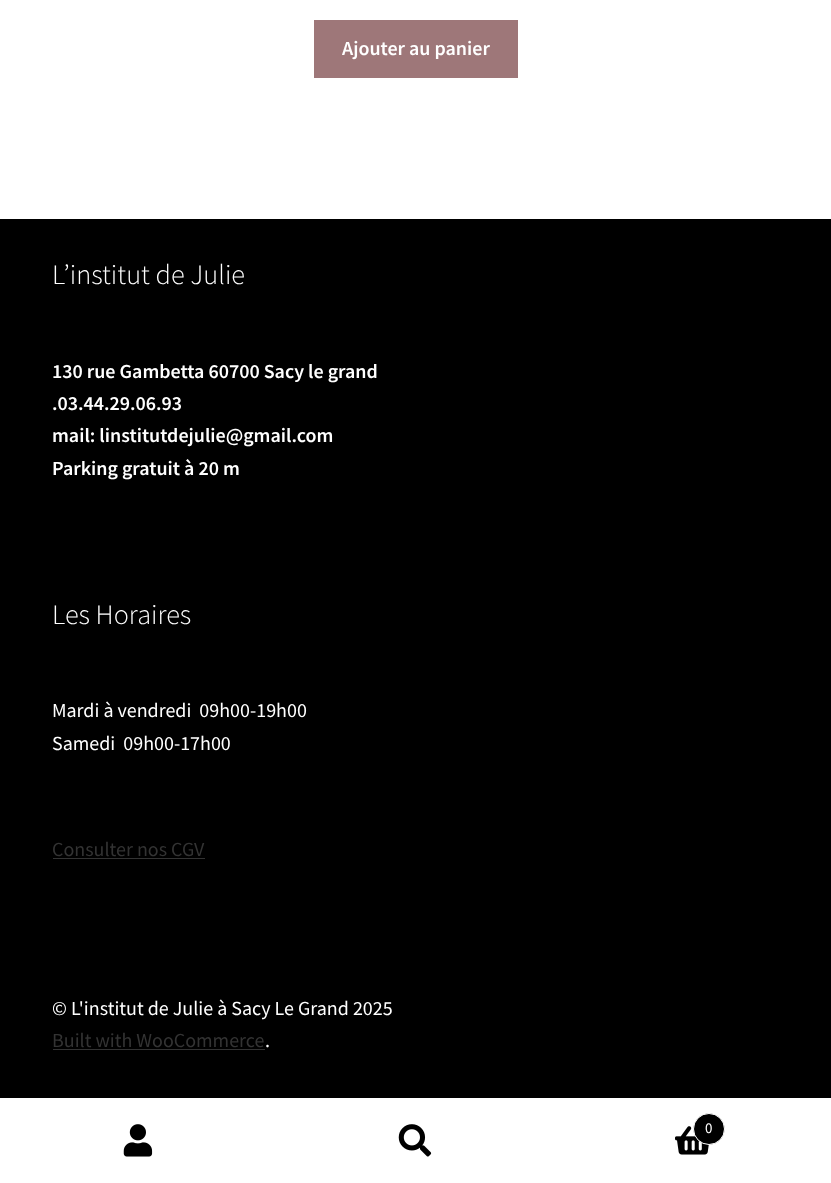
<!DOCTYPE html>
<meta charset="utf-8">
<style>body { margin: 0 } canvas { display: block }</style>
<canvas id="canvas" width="831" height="1183"></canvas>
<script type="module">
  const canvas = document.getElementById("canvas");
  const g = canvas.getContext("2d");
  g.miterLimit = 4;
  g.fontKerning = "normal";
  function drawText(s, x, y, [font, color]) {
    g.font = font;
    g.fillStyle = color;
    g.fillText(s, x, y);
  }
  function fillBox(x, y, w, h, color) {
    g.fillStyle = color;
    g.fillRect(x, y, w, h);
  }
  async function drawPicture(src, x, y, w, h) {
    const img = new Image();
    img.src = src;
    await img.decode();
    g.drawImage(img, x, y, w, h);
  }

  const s1 = ["600 20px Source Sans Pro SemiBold", "#FFFFFF"];
  const s2 = ["300 28.25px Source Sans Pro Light", "#FFFFFF"];
  const s3 = ["20px Source Sans Pro", "#FFFFFF"];
  const s4 = ["20px Source Sans Pro", "#333333"];
  const s5 = ["15px Source Sans Pro", "#FFFFFF"];

  fillBox(0, 0, 831, 1183, "#FFFFFF");
  fillBox(314, 20, 204, 58, "#9E7779");
  drawText("Ajouter au panier", 342, 55, s1);
  fillBox(0, 219, 831, 879, "#000000");
  drawText("L’institut de Julie", 52, 284, s2);
  drawText("130 rue Gambetta 60700 Sacy le grand", 52, 378, s1);
  drawText(".03.44.29.06.93", 52, 410, s1);
  drawText("mail: linstitutdejulie@gmail.com", 52, 442, s1);
  drawText("Parking gratuit à 20 m", 52, 475, s1);
  drawText("Les Horaires", 52, 624, s2);
  drawText("Mardi à vendredi  09h00-19h00", 52, 717, s3);
  drawText("Samedi  09h00-17h00", 52, 750, s3);
  drawText("Consulter nos CGV", 52, 856, s4);
  fillBox(53, 858, 152, 1, "#333333");
  drawText("© L'institut de Julie à Sacy Le Grand 2025", 52, 1015, s3);
  drawText("Built with WooCommerce", 52, 1047, s4);
  fillBox(53, 1049, 212, 1, "#333333");
  drawText(".", 265, 1047, s3);
  await drawPicture("pic1.png", 123, 1124, 30, 33);
  await drawPicture("pic2.png", 398, 1124, 34, 33);
  await drawPicture("pic3.png", 675, 1126, 34, 29);
  g.fillStyle = "#000000";
  g.beginPath();
  g.arc(709, 1129, 15.5, 0, Math.PI * 2);
  g.fill();
  g.strokeStyle = "#FFFFFF";
  g.stroke();
  drawText("0", 705, 1133, s5);
</script>
